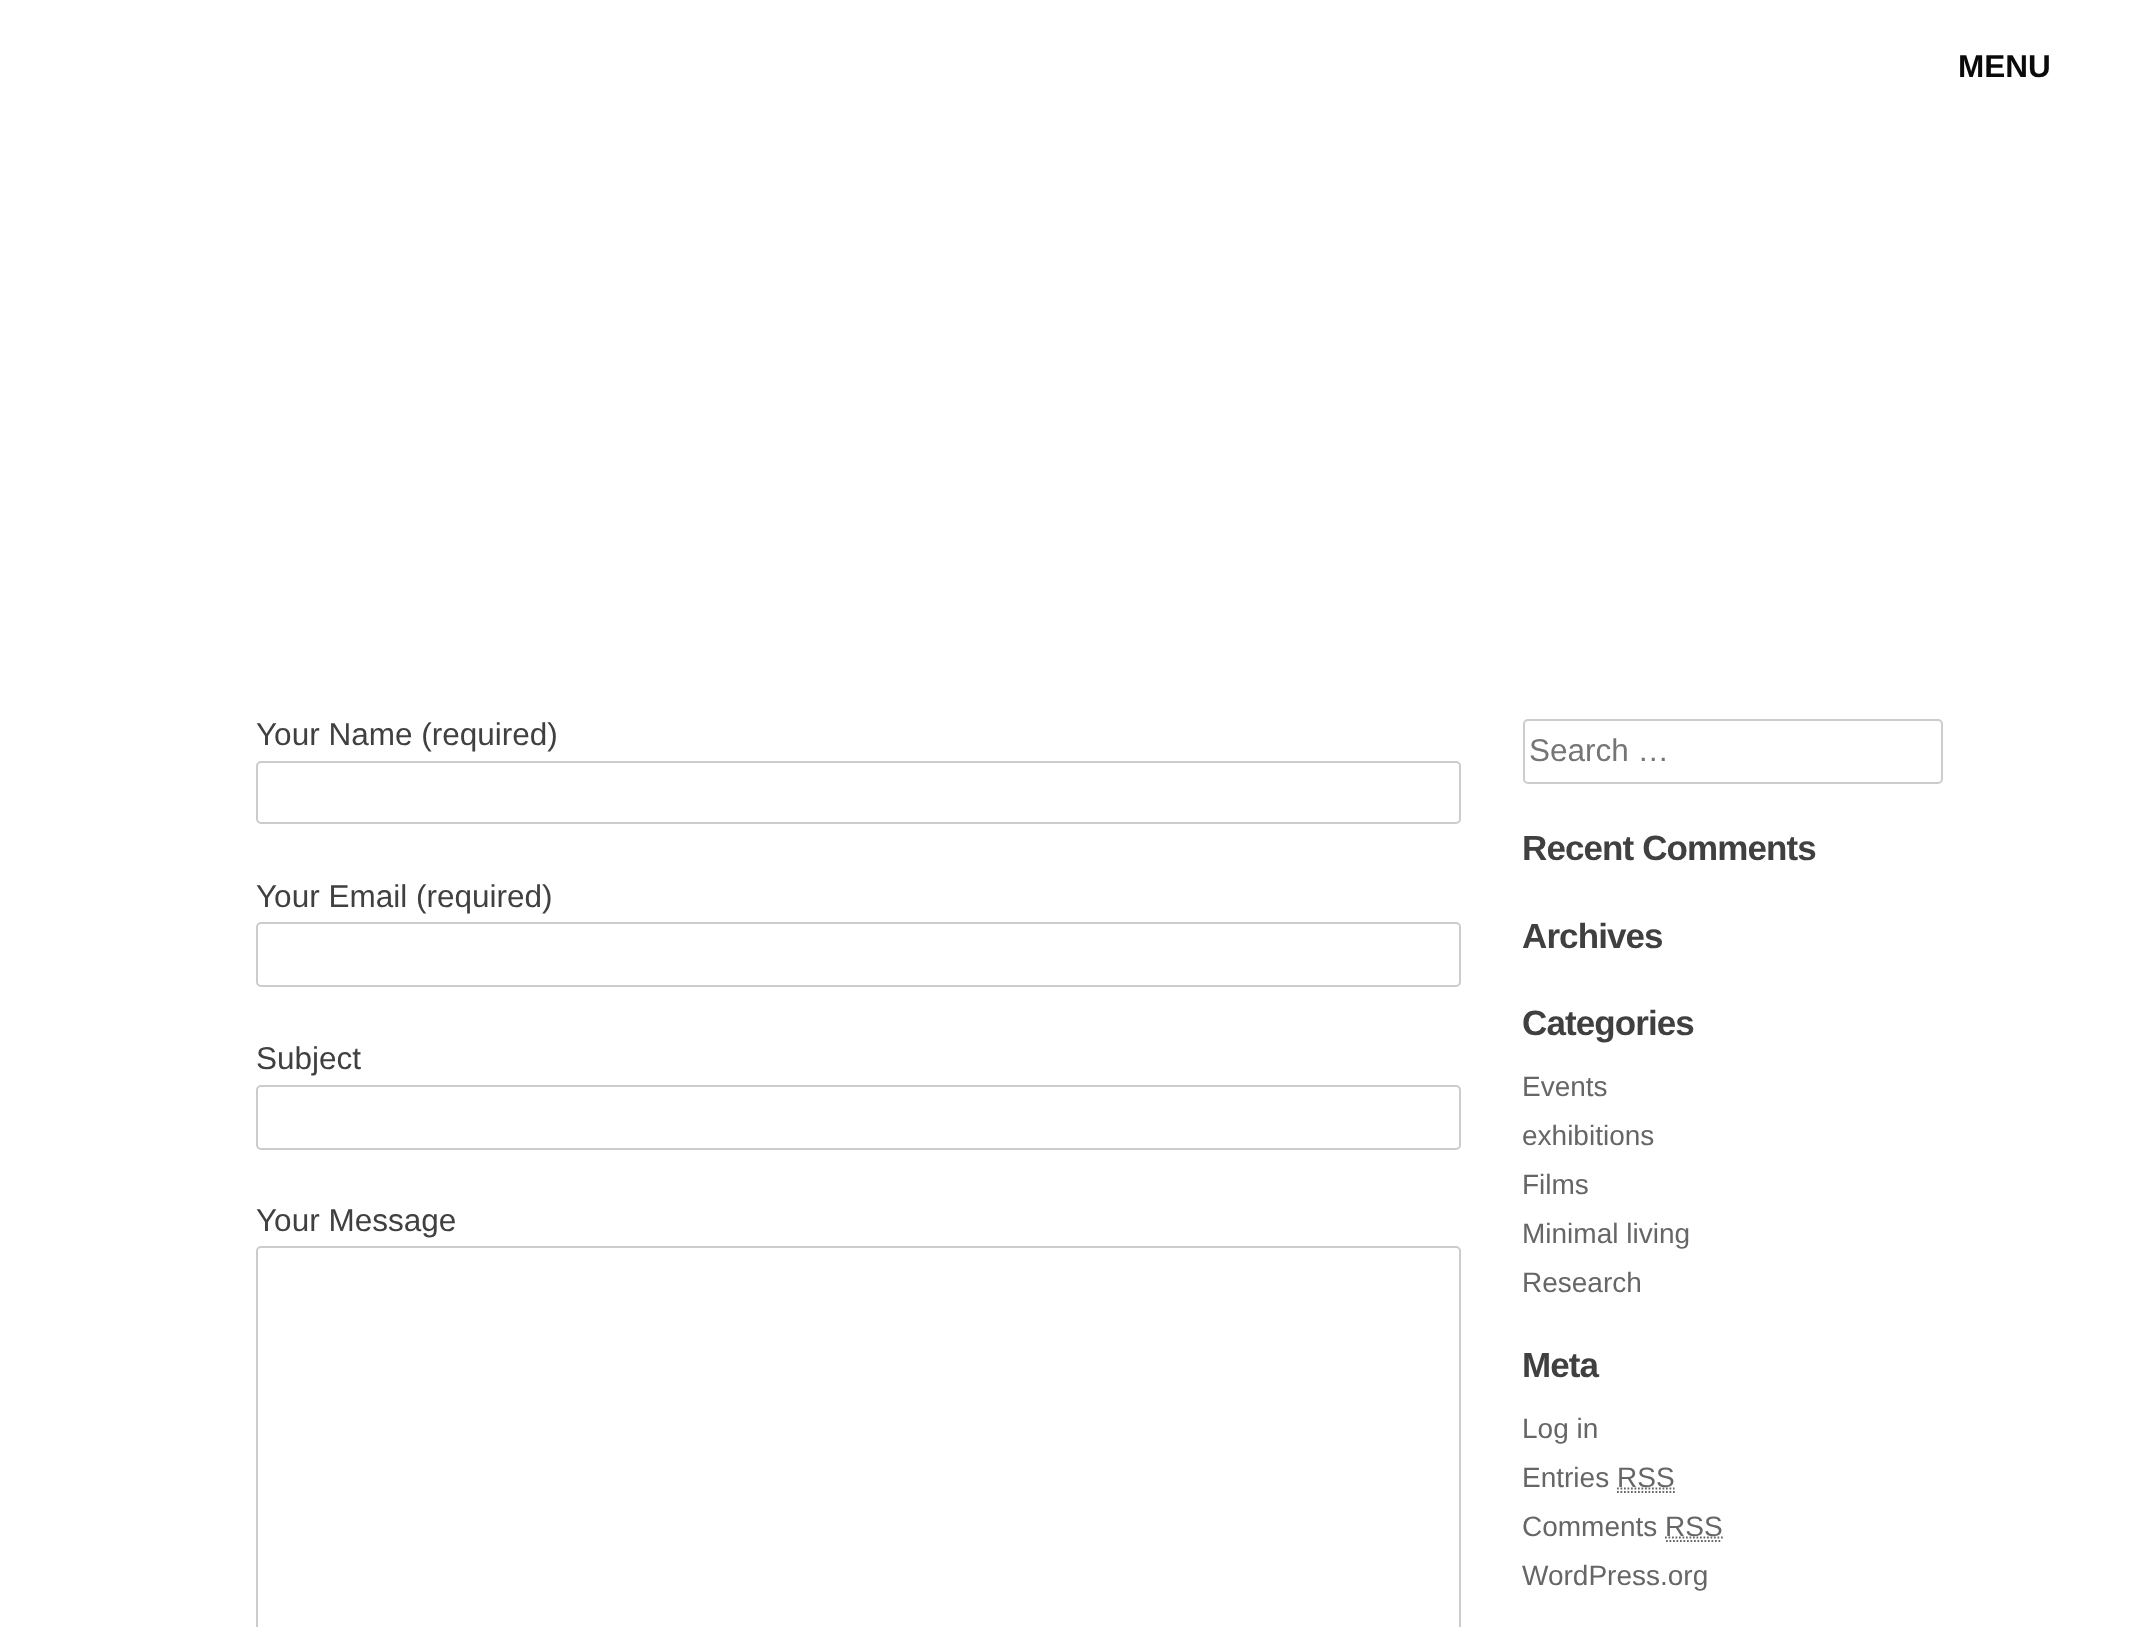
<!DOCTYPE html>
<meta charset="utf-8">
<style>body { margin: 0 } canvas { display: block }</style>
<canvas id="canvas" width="2138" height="1627"></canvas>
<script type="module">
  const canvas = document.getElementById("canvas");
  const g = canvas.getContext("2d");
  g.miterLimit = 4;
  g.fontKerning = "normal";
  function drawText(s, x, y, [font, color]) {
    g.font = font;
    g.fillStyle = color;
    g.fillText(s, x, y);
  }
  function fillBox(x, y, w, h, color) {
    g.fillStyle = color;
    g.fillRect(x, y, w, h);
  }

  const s1 = ["bold 31.5px Liberation Sans", "#0A0A0A"];
  const s2 = ["31.5px Liberation Sans", "#404040"];
  const s3 = ["31.5px Liberation Sans", "#757575"];
  const s4 = ["bold 35px Liberation Sans", "#404040"];
  const s5 = ["28px Liberation Sans", "#666666"];

  fillBox(0, 0, 2138, 1627, "#FFFFFF");
  drawText("MENU", 1958, 77, s1);
  drawText("Your Name (required)", 256, 745, s2);
  g.beginPath();
  g.roundRect(257, 762, 1203, 61, 4);
  g.strokeStyle = "#CCCCCC";
  g.lineWidth = 2;
  g.stroke();
  drawText("Your Email (required)", 256, 907, s2);
  g.beginPath();
  g.roundRect(257, 923, 1203, 63, 4);
  g.stroke();
  drawText("Subject", 256, 1069, s2);
  g.beginPath();
  g.roundRect(257, 1086, 1203, 63, 4);
  g.stroke();
  drawText("Your Message", 256, 1231, s2);
  g.beginPath();
  g.roundRect(257, 1247, 1203, 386, 4);
  g.stroke();
  g.beginPath();
  g.roundRect(1524, 720, 418, 63, 4);
  g.stroke();
  drawText("Search …", 1529, 761, s3);
  g.letterSpacing = "-0.9px";
  drawText("Recent Comments", 1522, 860, s4);
  drawText("Archives", 1522, 948, s4);
  drawText("Categories", 1522, 1035, s4);
  g.letterSpacing = "0px";
  drawText("Events", 1522, 1096, s5);
  drawText("exhibitions", 1522, 1145, s5);
  drawText("Films", 1522, 1194, s5);
  drawText("Minimal living", 1522, 1243, s5);
  drawText("Research", 1522, 1292, s5);
  g.letterSpacing = "-0.9px";
  drawText("Meta", 1522, 1377, s4);
  g.letterSpacing = "0px";
  drawText("Log in", 1522, 1438, s5);
  drawText("Entries", 1522, 1487, s5);
  g.beginPath();
  g.moveTo(1617, 1492);
  g.lineTo(1675, 1492);
  g.moveTo(1617, 1488.5);
  g.lineTo(1674.5, 1488.5);
  g.strokeStyle = "#666666";
  g.lineWidth = 1.8;
  g.setLineDash([1.75, 1.75]);
  g.stroke();
  drawText("RSS", 1617, 1487, s5);
  drawText("Comments", 1522, 1536, s5);
  g.beginPath();
  g.moveTo(1666, 1541);
  g.lineTo(1722, 1541);
  g.moveTo(1665, 1537.5);
  g.lineTo(1723, 1537.5);
  g.stroke();
  drawText("RSS", 1665, 1536, s5);
  drawText("WordPress.org", 1522, 1585, s5);
</script>
